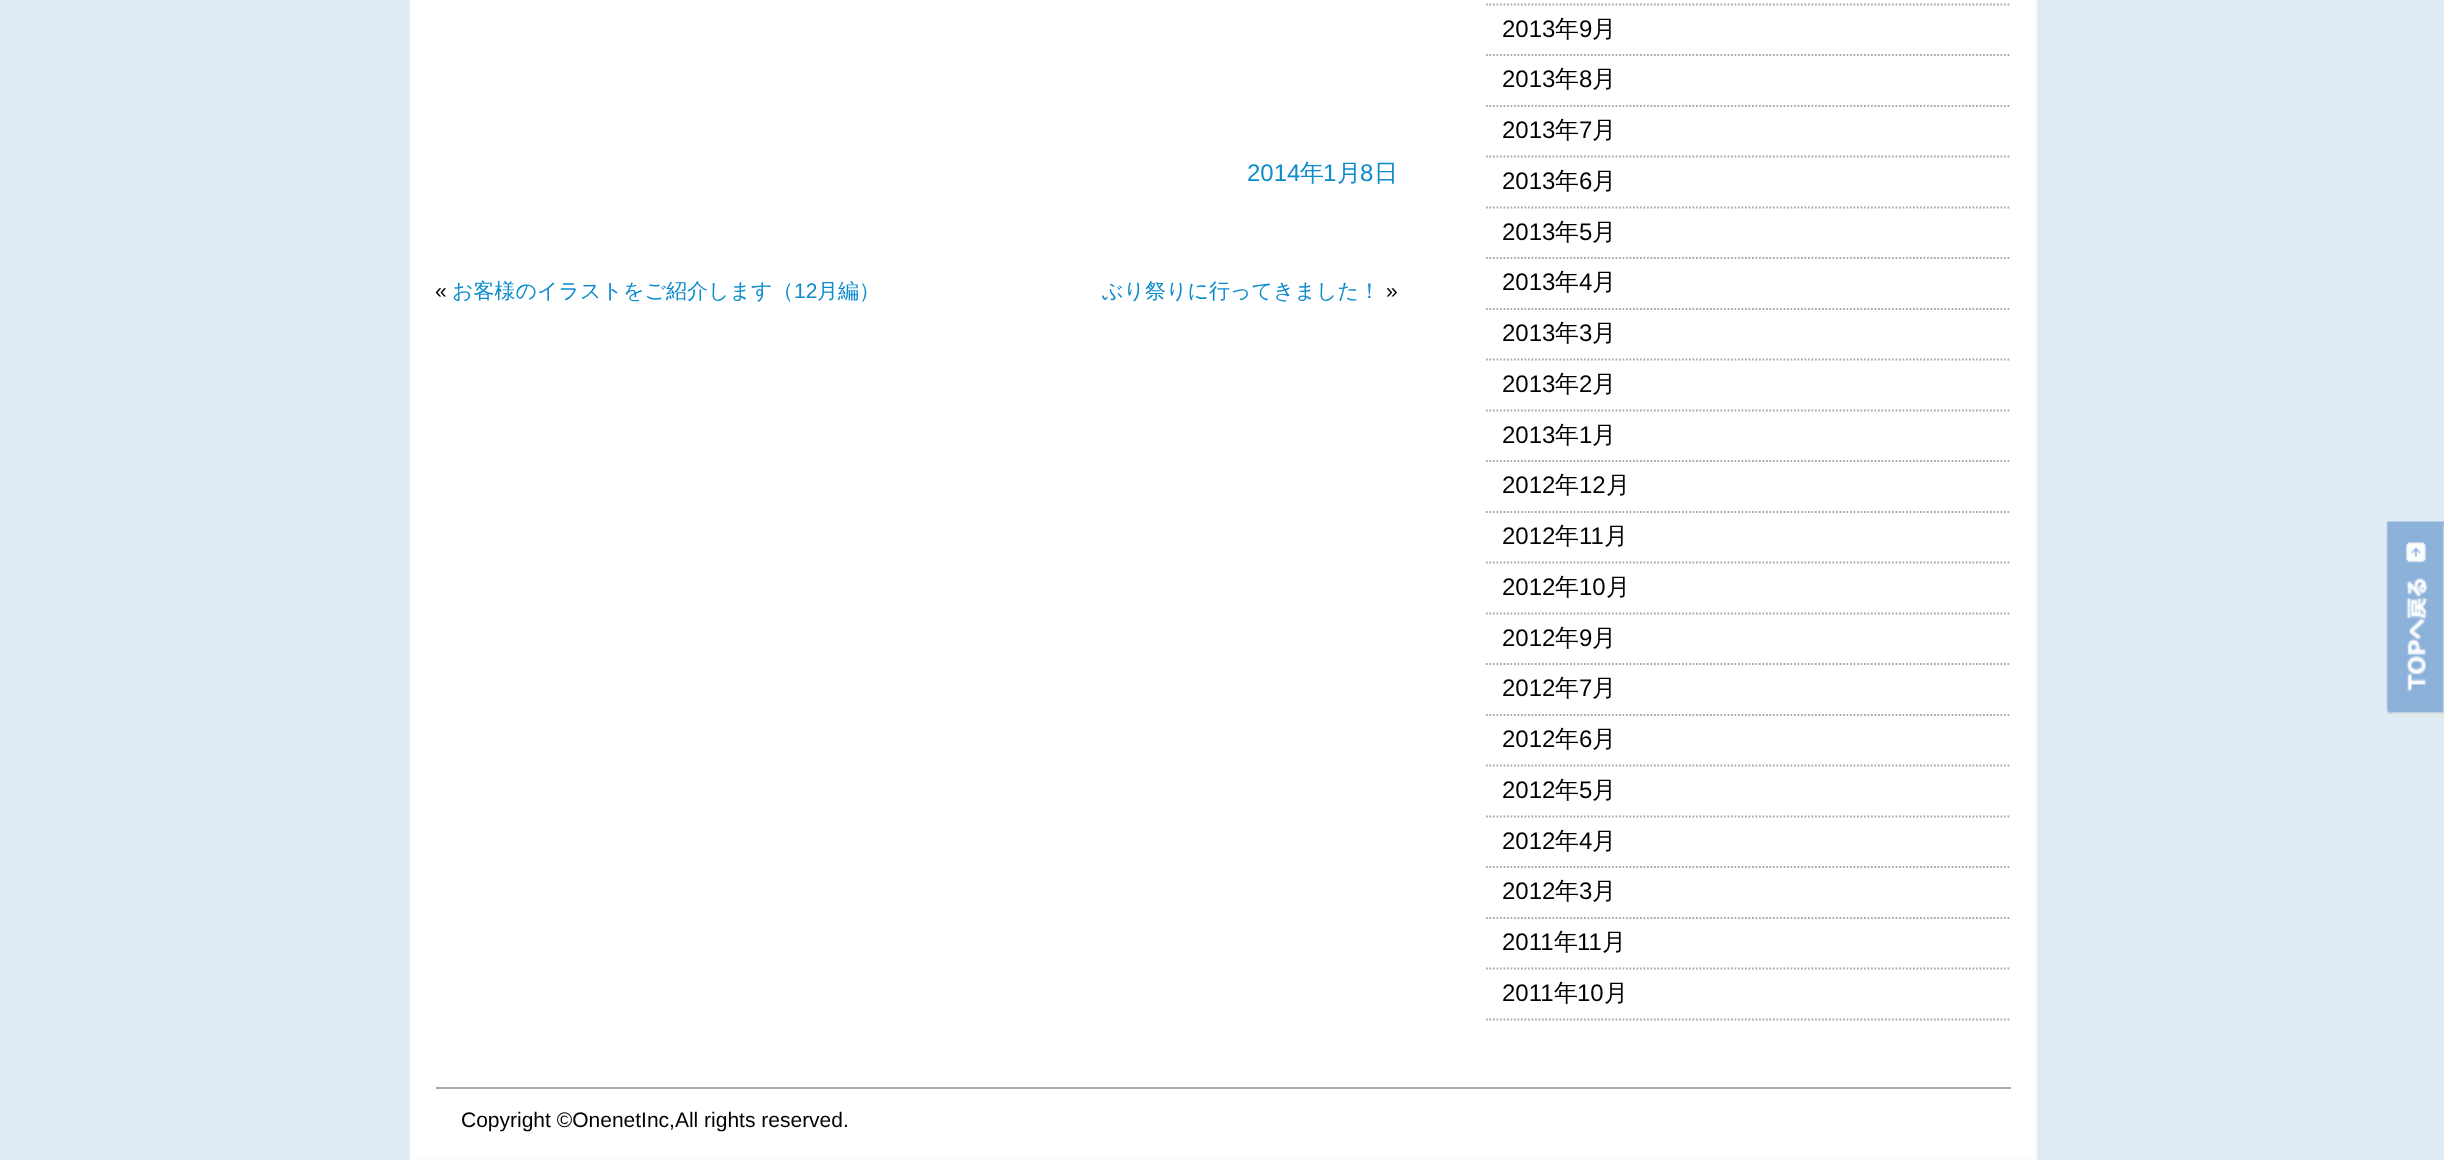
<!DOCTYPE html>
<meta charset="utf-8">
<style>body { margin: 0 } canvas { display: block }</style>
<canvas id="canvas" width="2444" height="1160"></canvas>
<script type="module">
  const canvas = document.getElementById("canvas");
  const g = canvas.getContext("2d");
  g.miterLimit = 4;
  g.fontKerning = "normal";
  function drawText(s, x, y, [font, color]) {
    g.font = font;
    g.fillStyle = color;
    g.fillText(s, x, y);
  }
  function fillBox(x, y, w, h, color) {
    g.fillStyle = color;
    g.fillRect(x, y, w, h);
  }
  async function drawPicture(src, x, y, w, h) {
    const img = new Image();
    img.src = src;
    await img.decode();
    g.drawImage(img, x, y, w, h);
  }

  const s1 = ["24px Liberation Sans", "#0C8BCD"];
  const s2 = ["500 24px WenQuanYi Zen Hei", "#0C8BCD"];
  const s3 = ["21px Liberation Sans", "#000000"];
  const s4 = ["500 21px WenQuanYi Zen Hei", "#0C8BCD"];
  const s5 = ["21px Liberation Sans", "#0C8BCD"];
  const s6 = ["24px Liberation Sans", "#000000"];
  const s7 = ["500 24px WenQuanYi Zen Hei", "#000000"];

  fillBox(0, 0, 2444, 1160, "#E0ECF5");
  await drawPicture("pic1.png", 409, 0, 1629, 1160);
  drawText("2014", 1247, 181, s1);
  drawText("年", 1300, 181, s2);
  drawText("1", 1323, 181, s1);
  drawText("月", 1337, 181, s2);
  drawText("8", 1360, 181, s1);
  drawText("日", 1374, 181, s2);
  drawText("«", 435, 298, s3);
  drawText("お客様のイラストをご紹介します（", 452, 298, s4);
  drawText("12", 794, 298, s5);
  drawText("月編）", 817, 298, s4);
  drawText("ぶり祭りに行ってきました！", 1102, 298, s4);
  drawText("»", 1386, 298, s3);
  g.beginPath();
  g.moveTo(1486, 4.5);
  g.lineTo(2011, 4.5);
  g.strokeStyle = "#AAAAAA";
  g.lineWidth = 1.8;
  g.setLineDash([1.75, 1.75]);
  g.stroke();
  g.beginPath();
  g.moveTo(1486, 55);
  g.lineTo(2011, 55);
  g.stroke();
  drawText("2013", 1502, 37, s6);
  drawText("年", 1555, 37, s7);
  drawText("9", 1579, 37, s6);
  drawText("月", 1592, 37, s7);
  g.beginPath();
  g.moveTo(1486, 106);
  g.lineTo(2011, 106);
  g.stroke();
  drawText("2013", 1502, 87, s6);
  drawText("年", 1555, 87, s7);
  drawText("8", 1579, 87, s6);
  drawText("月", 1592, 87, s7);
  g.beginPath();
  g.moveTo(1486, 156.5);
  g.lineTo(2011, 156.5);
  g.stroke();
  drawText("2013", 1502, 138, s6);
  drawText("年", 1555, 138, s7);
  drawText("7", 1579, 138, s6);
  drawText("月", 1592, 138, s7);
  g.beginPath();
  g.moveTo(1486, 207.5);
  g.lineTo(2011, 207.5);
  g.stroke();
  drawText("2013", 1502, 189, s6);
  drawText("年", 1555, 189, s7);
  drawText("6", 1579, 189, s6);
  drawText("月", 1592, 189, s7);
  g.beginPath();
  g.moveTo(1486, 258);
  g.lineTo(2011, 258);
  g.stroke();
  drawText("2013", 1502, 240, s6);
  drawText("年", 1555, 240, s7);
  drawText("5", 1579, 240, s6);
  drawText("月", 1592, 240, s7);
  g.beginPath();
  g.moveTo(1486, 309);
  g.lineTo(2011, 309);
  g.stroke();
  drawText("2013", 1502, 290, s6);
  drawText("年", 1555, 290, s7);
  drawText("4", 1579, 290, s6);
  drawText("月", 1592, 290, s7);
  g.beginPath();
  g.moveTo(1486, 359.5);
  g.lineTo(2011, 359.5);
  g.stroke();
  drawText("2013", 1502, 341, s6);
  drawText("年", 1555, 341, s7);
  drawText("3", 1579, 341, s6);
  drawText("月", 1592, 341, s7);
  g.beginPath();
  g.moveTo(1486, 410.5);
  g.lineTo(2011, 410.5);
  g.stroke();
  drawText("2013", 1502, 392, s6);
  drawText("年", 1555, 392, s7);
  drawText("2", 1579, 392, s6);
  drawText("月", 1592, 392, s7);
  g.beginPath();
  g.moveTo(1486, 461);
  g.lineTo(2011, 461);
  g.stroke();
  drawText("2013", 1502, 443, s6);
  drawText("年", 1555, 443, s7);
  drawText("1", 1579, 443, s6);
  drawText("月", 1592, 443, s7);
  g.beginPath();
  g.moveTo(1486, 512);
  g.lineTo(2011, 512);
  g.stroke();
  drawText("2012", 1502, 493, s6);
  drawText("年", 1555, 493, s7);
  drawText("12", 1579, 493, s6);
  drawText("月", 1606, 493, s7);
  g.beginPath();
  g.moveTo(1486, 562.5);
  g.lineTo(2011, 562.5);
  g.stroke();
  drawText("2012", 1502, 544, s6);
  drawText("年", 1555, 544, s7);
  drawText("11", 1579, 544, s6);
  drawText("月", 1604, 544, s7);
  g.beginPath();
  g.moveTo(1486, 613.5);
  g.lineTo(2011, 613.5);
  g.stroke();
  drawText("2012", 1502, 595, s6);
  drawText("年", 1555, 595, s7);
  drawText("10", 1579, 595, s6);
  drawText("月", 1606, 595, s7);
  g.beginPath();
  g.moveTo(1486, 664);
  g.lineTo(2011, 664);
  g.stroke();
  drawText("2012", 1502, 646, s6);
  drawText("年", 1555, 646, s7);
  drawText("9", 1579, 646, s6);
  drawText("月", 1592, 646, s7);
  g.beginPath();
  g.moveTo(1486, 715);
  g.lineTo(2011, 715);
  g.stroke();
  drawText("2012", 1502, 696, s6);
  drawText("年", 1555, 696, s7);
  drawText("7", 1579, 696, s6);
  drawText("月", 1592, 696, s7);
  g.beginPath();
  g.moveTo(1486, 765.5);
  g.lineTo(2011, 765.5);
  g.stroke();
  drawText("2012", 1502, 747, s6);
  drawText("年", 1555, 747, s7);
  drawText("6", 1579, 747, s6);
  drawText("月", 1592, 747, s7);
  g.beginPath();
  g.moveTo(1486, 816.5);
  g.lineTo(2011, 816.5);
  g.stroke();
  drawText("2012", 1502, 798, s6);
  drawText("年", 1555, 798, s7);
  drawText("5", 1579, 798, s6);
  drawText("月", 1592, 798, s7);
  g.beginPath();
  g.moveTo(1486, 867);
  g.lineTo(2011, 867);
  g.stroke();
  drawText("2012", 1502, 849, s6);
  drawText("年", 1555, 849, s7);
  drawText("4", 1579, 849, s6);
  drawText("月", 1592, 849, s7);
  g.beginPath();
  g.moveTo(1486, 918);
  g.lineTo(2011, 918);
  g.stroke();
  drawText("2012", 1502, 899, s6);
  drawText("年", 1555, 899, s7);
  drawText("3", 1579, 899, s6);
  drawText("月", 1592, 899, s7);
  g.beginPath();
  g.moveTo(1486, 968.5);
  g.lineTo(2011, 968.5);
  g.stroke();
  drawText("2011", 1502, 950, s6);
  drawText("年", 1554, 950, s7);
  drawText("11", 1577, 950, s6);
  drawText("月", 1602, 950, s7);
  g.beginPath();
  g.moveTo(1486, 1019.5);
  g.lineTo(2011, 1019.5);
  g.stroke();
  drawText("2011", 1502, 1001, s6);
  drawText("年", 1554, 1001, s7);
  drawText("10", 1577, 1001, s6);
  drawText("月", 1604, 1001, s7);
  fillBox(436, 1087, 1575, 2, "#AAAAAA");
  drawText("Copyright ©OnenetInc,All rights reserved.", 461, 1127, s3);
  await drawPicture("pic2.png", 2386, 521, 58, 197);
</script>
